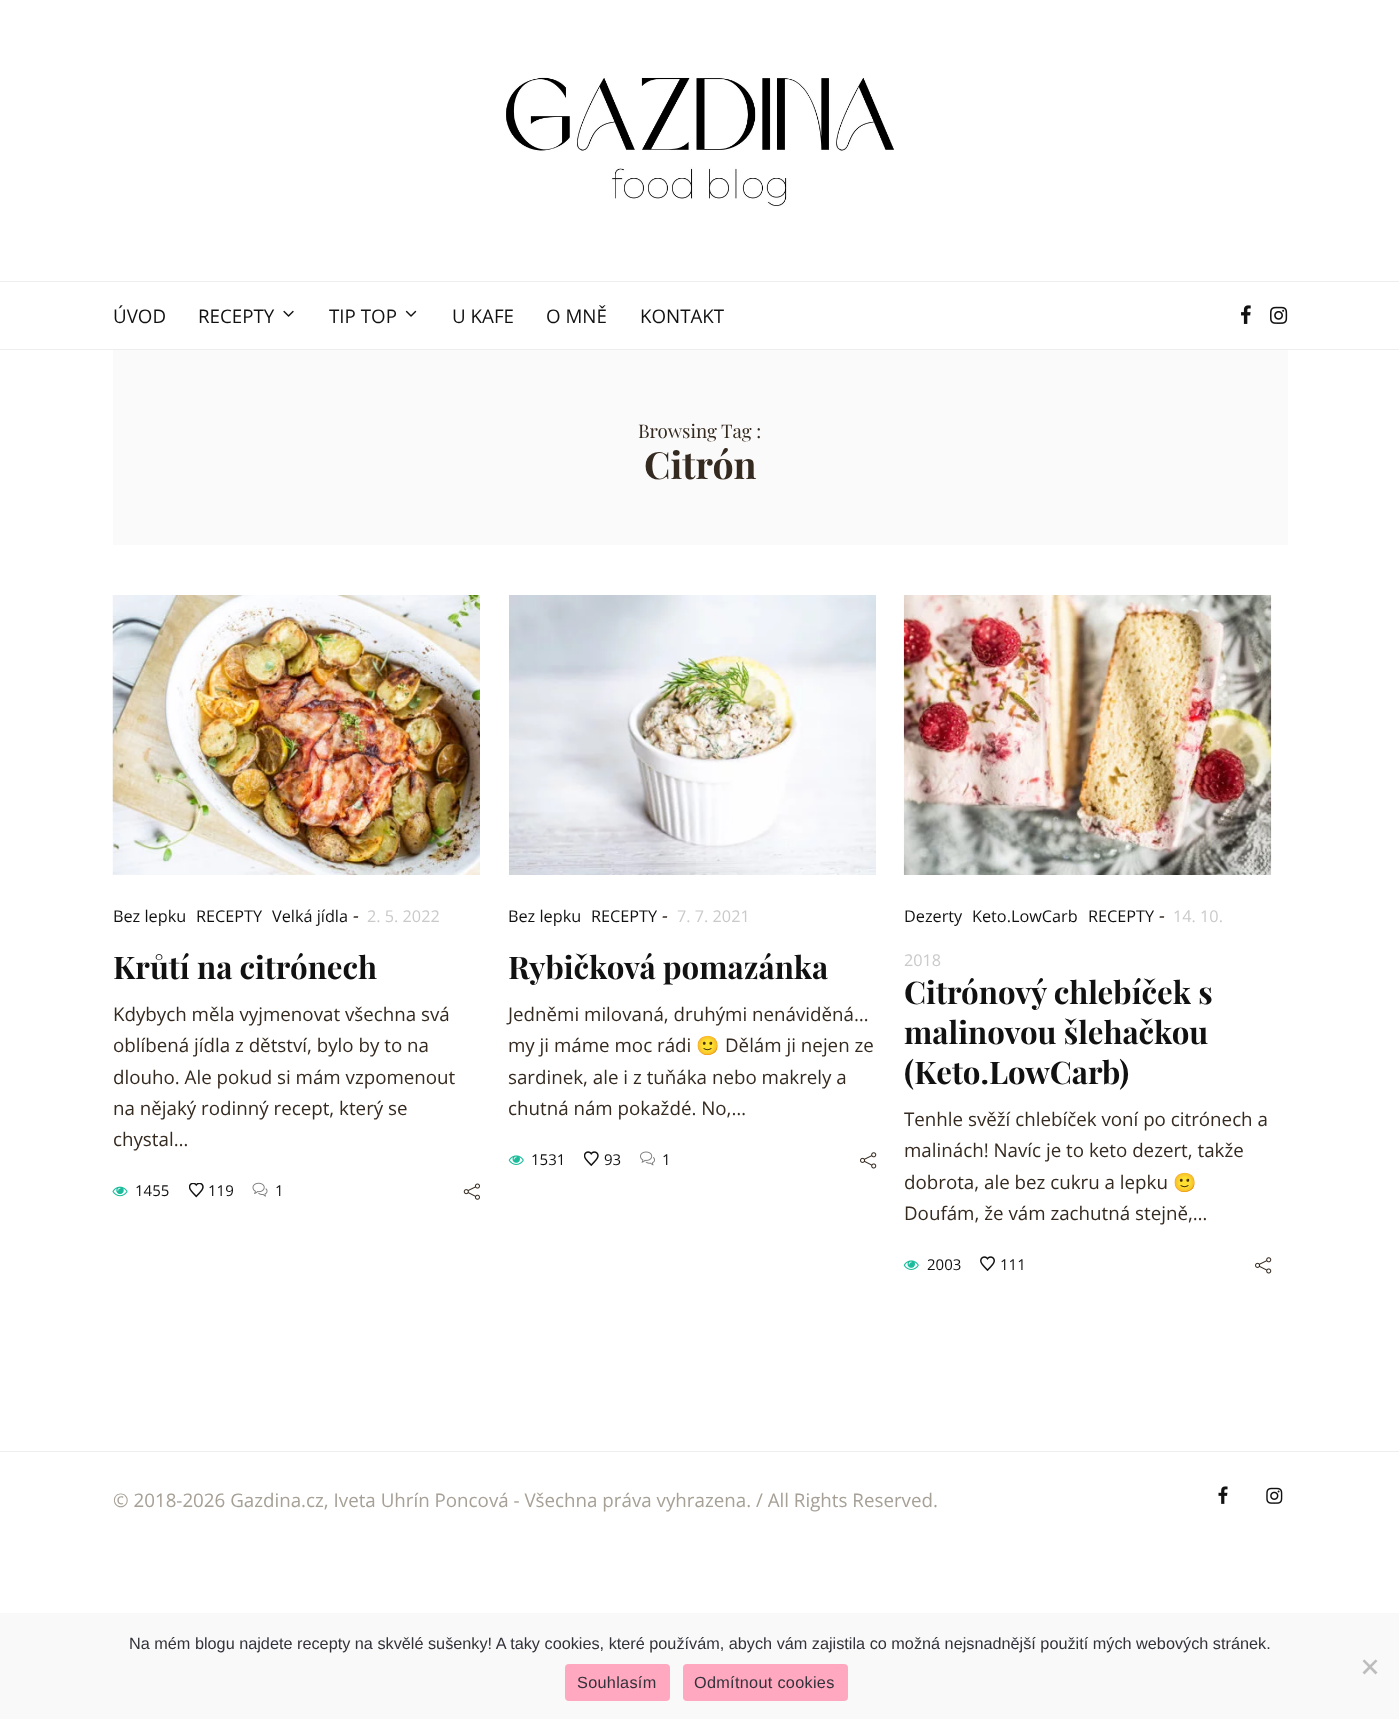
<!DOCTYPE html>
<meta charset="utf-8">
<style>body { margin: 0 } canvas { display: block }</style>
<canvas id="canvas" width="1399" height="1719"></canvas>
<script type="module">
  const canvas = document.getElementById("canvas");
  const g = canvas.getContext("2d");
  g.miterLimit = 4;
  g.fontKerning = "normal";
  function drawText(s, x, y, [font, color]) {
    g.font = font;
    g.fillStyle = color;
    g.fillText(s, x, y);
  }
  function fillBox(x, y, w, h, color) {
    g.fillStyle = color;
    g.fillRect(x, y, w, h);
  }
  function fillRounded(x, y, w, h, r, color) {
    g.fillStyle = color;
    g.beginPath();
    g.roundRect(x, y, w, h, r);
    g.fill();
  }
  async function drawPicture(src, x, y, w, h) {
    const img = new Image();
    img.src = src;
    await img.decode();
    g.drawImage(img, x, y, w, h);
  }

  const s1 = ["18.75px Open Sans", "#111111"];
  const s2 = ["18.75px Playfair Display", "#352A20"];
  const s3 = ["bold 37.5px Playfair Display", "#352A20"];
  const s4 = ["16.25px Open Sans", "#111111"];
  const s5 = ["italic 18.75px Open Sans", "#352A20"];
  const s6 = ["16.25px Open Sans", "#CACACA"];
  const s7 = ["bold 31.25px Playfair Display", "#111111"];
  const s8 = ["18.75px Open Sans", "#352A20"];
  const s9 = ["15px Open Sans", "#111111"];
  const s10 = ["18.75px Noto Color Emoji", "#352A20"];
  const s11 = ["18.75px Open Sans", "#A6A096"];
  const s12 = ["16.25px Liberation Sans", "#32323A"];

  fillBox(0, 0, 1399, 1719, "#FFFFFF");
  await drawPicture("pic1.png", 506, 77, 388, 130);
  fillBox(0, 281, 1399, 1, "#EEEEEE");
  fillBox(0, 349, 1399, 1, "#EEEEEE");
  drawText("ÚVOD", 113, 323, s1);
  drawText("RECEPTY", 198, 323, s1);
  await drawPicture("pic2.png", 283, 310, 11, 7);
  drawText("TIP TOP", 329, 323, s1);
  await drawPicture("pic3.png", 405, 310, 12, 7);
  drawText("U KAFE", 452, 323, s1);
  drawText("O MNĚ", 546, 323, s1);
  drawText("KONTAKT", 640, 323, s1);
  await drawPicture("pic4.png", 1241, 305, 10, 19);
  await drawPicture("pic5.png", 1270, 306, 18, 18);
  fillBox(113, 350, 1175, 195, "#FBFAFA");
  drawText("Browsing Tag :", 638, 438, s2);
  drawText("Citrón", 644, 479, s3);
  await drawPicture("pic6.png", 112, 595, 368, 280);
  drawText("Bez lepku", 113, 922, s4);
  drawText("RECEPTY", 196, 922, s4);
  drawText("Velká jídla", 272, 922, s4);
  drawText("-", 353, 922, s5);
  drawText("2. 5. 2022", 367, 922, s6);
  drawText("Krůtí na citrónech", 113, 979, s7);
  drawText("Kdybych měla vyjmenovat všechna svá", 113, 1021, s8);
  drawText("oblíbená jídla z dětství, bylo by to na", 113, 1052, s8);
  drawText("dlouho. Ale pokud si mám vzpomenout", 113, 1084, s8);
  drawText("na nějaký rodinný recept, který se", 113, 1115, s8);
  drawText("chystal…", 113, 1146, s8);
  await drawPicture("pic7.png", 112, 1186, 16, 11);
  drawText("1455", 135, 1196, s9);
  await drawPicture("pic8.png", 189, 1183, 15, 15);
  drawText("119", 208, 1196, s9);
  await drawPicture("pic9.png", 252, 1182, 16, 15);
  drawText("1", 275, 1196, s9);
  await drawPicture("pic10.png", 463, 1183, 17, 17);
  await drawPicture("pic11.png", 509, 595, 367, 280);
  drawText("Bez lepku", 508, 922, s4);
  drawText("RECEPTY", 591, 922, s4);
  drawText("-", 662, 922, s5);
  drawText("7. 7. 2021", 677, 922, s6);
  drawText("Rybičková pomazánka", 508, 979, s7);
  drawText("Jedněmi milovaná, druhými nenáviděná…", 508, 1021, s8);
  drawText("my ji máme moc rádi", 508, 1052, s8);
  drawText("🙂", 696, 1052, s10);
  drawText("Dělám ji nejen ze", 725, 1052, s8);
  drawText("sardinek, ale i z tuňáka nebo makrely a", 508, 1084, s8);
  drawText("chutná nám pokaždé. No,…", 508, 1115, s8);
  await drawPicture("pic12.png", 508, 1155, 16, 10);
  drawText("1531", 531, 1165, s9);
  await drawPicture("pic13.png", 584, 1151, 15, 15);
  drawText("93", 604, 1165, s9);
  await drawPicture("pic14.png", 640, 1151, 15, 15);
  drawText("1", 662, 1165, s9);
  await drawPicture("pic15.png", 860, 1152, 17, 17);
  await drawPicture("pic16.png", 903, 595, 369, 280);
  drawText("Dezerty", 904, 922, s4);
  drawText("Keto.LowCarb", 972, 922, s4);
  drawText("RECEPTY", 1088, 922, s4);
  drawText("-", 1159, 922, s5);
  drawText("14. 10.", 1173, 922, s6);
  drawText("2018", 904, 966, s6);
  drawText("Citrónový chlebíček s", 904, 1004, s7);
  drawText("malinovou šlehačkou", 904, 1044, s7);
  drawText("(Keto.LowCarb)", 904, 1084, s7);
  drawText("Tenhle svěží chlebíček voní po citrónech a", 904, 1126, s8);
  drawText("malinách! Navíc je to keto dezert, takže", 904, 1157, s8);
  drawText("dobrota, ale bez cukru a lepku", 904, 1189, s8);
  drawText("🙂", 1173, 1189, s10);
  drawText("Doufám, že vám zachutná stejně,…", 904, 1220, s8);
  await drawPicture("pic12.png", 903, 1260, 16, 10);
  drawText("2003", 927, 1270, s9);
  await drawPicture("pic17.png", 980, 1256, 15, 15);
  drawText("111", 1000, 1270, s9);
  await drawPicture("pic15.png", 1255, 1257, 17, 17);
  fillBox(0, 1451, 1399, 1, "#EEEEEE");
  drawText("© 2018-2026 Gazdina.cz, Iveta Uhrín Poncová - Všechna práva vyhrazena. / All Rights Reserved.", 113, 1507, s11);
  await drawPicture("pic18.png", 1218, 1486, 10, 18);
  await drawPicture("pic19.png", 1266, 1487, 17, 17);
  fillBox(0, 1613, 1399, 106, "#F9F9F9");
  drawText("Na mém blogu najdete recepty na skvělé sušenky! A taky cookies, které používám, abych vám zajistila co možná nejsnadnější použití mých webových stránek.", 129, 1649, s12);
  g.fillStyle = "#BDBDBD";
  g.beginPath();
  g.moveTo(1375.5, 1659.5);
  g.lineTo(1377.5, 1661);
  g.lineTo(1364.5, 1674.5);
  g.lineTo(1362.5, 1672.5);
  g.closePath();
  g.fill();
  g.beginPath();
  g.moveTo(1362.5, 1661);
  g.lineTo(1364.5, 1659.5);
  g.lineTo(1377.5, 1672.5);
  g.lineTo(1375.5, 1674.5);
  g.closePath();
  g.fill();
  fillRounded(565, 1664, 105, 37, 4, "#FFA8BF");
  g.letterSpacing = "0.3px";
  drawText("Souhlasím", 577, 1688, s12);
  fillRounded(683, 1664, 165, 37, 4, "#FFA8BF");
  drawText("Odmítnout cookies", 694, 1688, s12);
</script>
